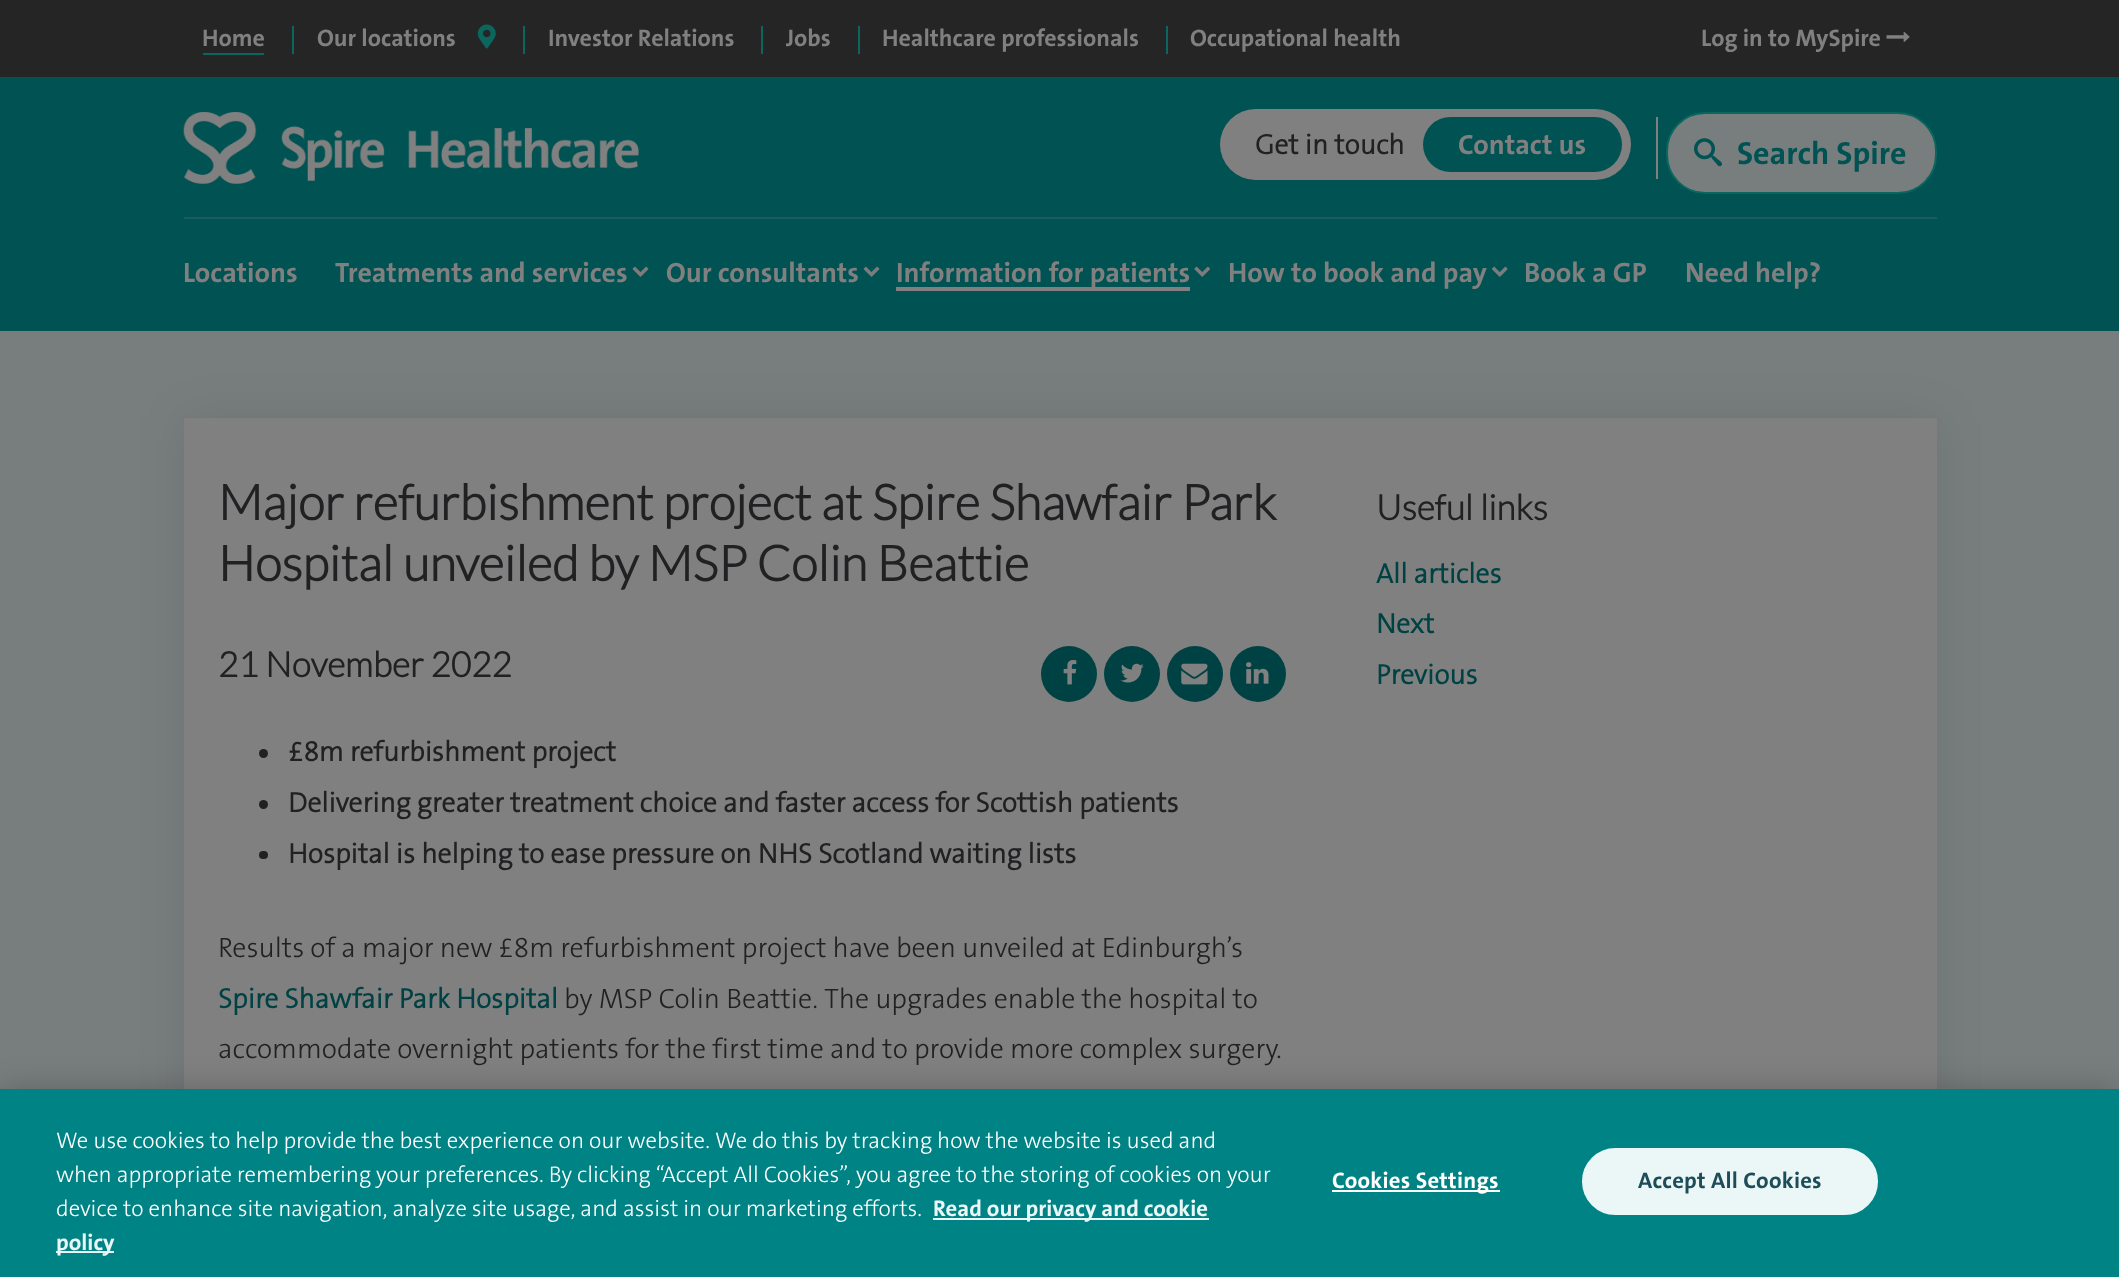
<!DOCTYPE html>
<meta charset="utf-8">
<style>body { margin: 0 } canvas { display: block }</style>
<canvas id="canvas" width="2119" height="1277"></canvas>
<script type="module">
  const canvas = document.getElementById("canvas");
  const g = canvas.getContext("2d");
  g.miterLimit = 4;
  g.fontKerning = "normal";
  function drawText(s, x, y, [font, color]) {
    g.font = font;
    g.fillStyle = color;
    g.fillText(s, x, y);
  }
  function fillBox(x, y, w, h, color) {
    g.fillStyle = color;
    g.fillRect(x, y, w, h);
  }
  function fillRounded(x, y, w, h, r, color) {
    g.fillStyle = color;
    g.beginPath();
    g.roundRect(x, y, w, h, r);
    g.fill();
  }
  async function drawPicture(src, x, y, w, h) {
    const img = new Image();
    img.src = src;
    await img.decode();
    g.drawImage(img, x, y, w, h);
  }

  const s1 = ["bold 24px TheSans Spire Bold", "#808080"];
  const s2 = ["bold 28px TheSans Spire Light", "#212123"];
  const s3 = ["bold 28px TheSans Spire Bold", "#808080"];
  const s4 = ["bold 32px TheSans Spire Bold", "#005253"];
  const s5 = ["bold 49px Lato", "#212123"];
  const s6 = ["bold 35px Lato", "#212123"];
  const s7 = ["300 28px TheSans Spire Light", "#212123"];
  const s8 = ["bold 28px TheSans Spire Light", "#004243"];
  const s9 = ["300 22.75px TheSans Spire Light", "#FFFFFF"];
  const s10 = ["bold 22.75px TheSans Spire Bold", "#EBF7F7"];
  const s11 = ["bold 22.75px TheSans Spire Bold", "#FFFFFF"];
  const s12 = ["bold 22.75px TheSans Spire Bold", "#1D4D58"];

  fillBox(0, 0, 2119, 1277, "#252525");
  drawText("Home", 202, 46, s1);
  fillBox(203, 53, 61, 2, "#0B665E");
  fillBox(292, 26, 2, 28, "#0B665E");
  drawText("Our locations", 317, 46, s1);
  await drawPicture("pic1.png", 477, 24, 19, 25);
  fillBox(523, 26, 2, 28, "#0B665E");
  drawText("Investor Relations", 548, 46, s1);
  fillBox(761, 26, 2, 28, "#0B665E");
  drawText("Jobs", 786, 46, s1);
  fillBox(858, 26, 2, 28, "#0B665E");
  drawText("Healthcare professionals", 882, 46, s1);
  fillBox(1166, 26, 2, 28, "#0B665E");
  drawText("Occupational health", 1190, 46, s1);
  drawText("Log in to MySpire", 1701, 46, s1);
  await drawPicture("pic2.png", 1886, 31, 24, 11);
  fillBox(0, 77, 2119, 254, "#005253");
  await drawPicture("pic3.png", 183, 112, 456, 72);
  fillRounded(1220, 109, 411, 71, 35.5, "#808080");
  drawText("Get in touch", 1255, 154, s2);
  fillRounded(1423, 117, 199, 55, 27.5, "#005253");
  drawText("Contact us", 1458, 154, s3);
  fillBox(1656, 117, 2, 62, "#808080");
  g.fillStyle = "#787D7D";
  g.beginPath();
  g.roundRect(1667, 113, 269, 80, 38);
  g.fill();
  g.strokeStyle = "#0B665E";
  g.lineWidth = 2;
  g.stroke();
  await drawPicture("pic4.png", 1694, 138, 28, 29);
  drawText("Search Spire", 1737, 164, s4);
  fillBox(184, 217, 1753, 2, "#1A5B5C");
  drawText("Locations", 183, 282, s3);
  drawText("Treatments and services", 335, 282, s3);
  await drawPicture("pic5.png", 632, 266, 17, 11);
  drawText("Our consultants", 666, 282, s3);
  await drawPicture("pic5.png", 863, 266, 17, 11);
  drawText("Information for patients", 896, 282, s3);
  await drawPicture("pic6.png", 1194, 266, 17, 11);
  fillBox(896, 287, 294, 4, "#808080");
  drawText("How to book and pay", 1228, 282, s3);
  await drawPicture("pic7.png", 1491, 266, 17, 11);
  drawText("Book a GP", 1524, 282, s3);
  drawText("Need help?", 1685, 282, s3);
  fillBox(0, 331, 2119, 758, "#787D7D");
  g.fillStyle = "rgba(0, 0, 0, 0.08)";
  g.filter = "blur(24.5px)";
  g.beginPath();
  g.rect(184, 418, 1753, 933);
  g.fill();
  g.filter = "none";
  fillBox(184, 418, 1753, 671, "#808080");
  drawText("Major refurbishment project at Spire Shawfair Park", 218, 520, s5);
  drawText("Hospital unveiled by MSP Colin Beattie", 218, 581, s5);
  drawText("21 November 2022", 218, 677, s6);
  g.fillStyle = "#004243";
  g.beginPath();
  g.arc(1069, 674, 28, 0, Math.PI * 2);
  g.fill();
  await drawPicture("pic8.png", 1063, 660, 14, 25);
  g.beginPath();
  g.arc(1132, 674, 28, 0, Math.PI * 2);
  g.fill();
  await drawPicture("pic9.png", 1120, 663, 24, 20);
  g.beginPath();
  g.arc(1195, 674, 28, 0, Math.PI * 2);
  g.fill();
  await drawPicture("pic10.png", 1181, 663, 27, 22);
  g.beginPath();
  g.arc(1258, 674, 28, 0, Math.PI * 2);
  g.fill();
  await drawPicture("pic11.png", 1246, 662, 23, 22);
  g.fillStyle = "#212123";
  g.beginPath();
  g.arc(263.5, 753.5, 4.5, 0, Math.PI * 2);
  g.fill();
  drawText("£8m refurbishment project", 288, 761, s2);
  g.beginPath();
  g.arc(263.5, 804.5, 4.5, 0, Math.PI * 2);
  g.fill();
  drawText("Delivering greater treatment choice and faster access for Scottish patients", 288, 812, s2);
  fillRounded(259, 851, 9, 8, 4, "#212123");
  drawText("Hospital is helping to ease pressure on NHS Scotland waiting lists", 288, 863, s2);
  drawText("Results of a major new £8m refurbishment project have been unveiled at Edinburgh’s", 218, 957, s7);
  drawText("Spire Shawfair Park Hospital", 218, 1008, s8);
  drawText("by MSP Colin Beattie. The upgrades enable the hospital to", 564, 1008, s7);
  drawText("accommodate overnight patients for the first time and to provide more complex surgery.", 218, 1058, s7);
  drawText("Useful links", 1376, 520, s6);
  drawText("All articles", 1376, 583, s8);
  drawText("Next", 1376, 633, s8);
  drawText("Previous", 1376, 684, s8);
  g.fillStyle = "rgba(0, 0, 0, 0.2)";
  g.filter = "blur(16px)";
  g.beginPath();
  g.rect(0, 1089, 2119, 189);
  g.fill();
  g.filter = "none";
  fillBox(0, 1089, 2119, 188, "#008385");
  drawText("We use cookies to help provide the best experience on our website. We do this by tracking how the website is used and", 56, 1148, s9);
  drawText("when appropriate remembering your preferences. By clicking “Accept All Cookies”, you agree to the storing of cookies on your", 56, 1182, s9);
  drawText("device to enhance site navigation, analyze site usage, and assist in our marketing efforts.", 56, 1216, s9);
  fillBox(933, 1218, 276, 2, "#EBF7F7");
  drawText("Read our privacy and cookie", 933, 1216, s10);
  fillBox(56, 1251, 58, 2, "#EBF7F7");
  drawText("policy", 56, 1250, s10);
  fillBox(1332, 1190, 168, 2, "#FFFFFF");
  g.letterSpacing = "0.25px";
  drawText("Cookies Settings", 1332, 1188, s11);
  g.fillStyle = "#EBF7F7";
  g.beginPath();
  g.roundRect(1583, 1149, 294, 65, 32.5);
  g.fill();
  g.strokeStyle = "#EBF7F7";
  g.stroke();
  drawText("Accept All Cookies", 1638, 1188, s12);
</script>
